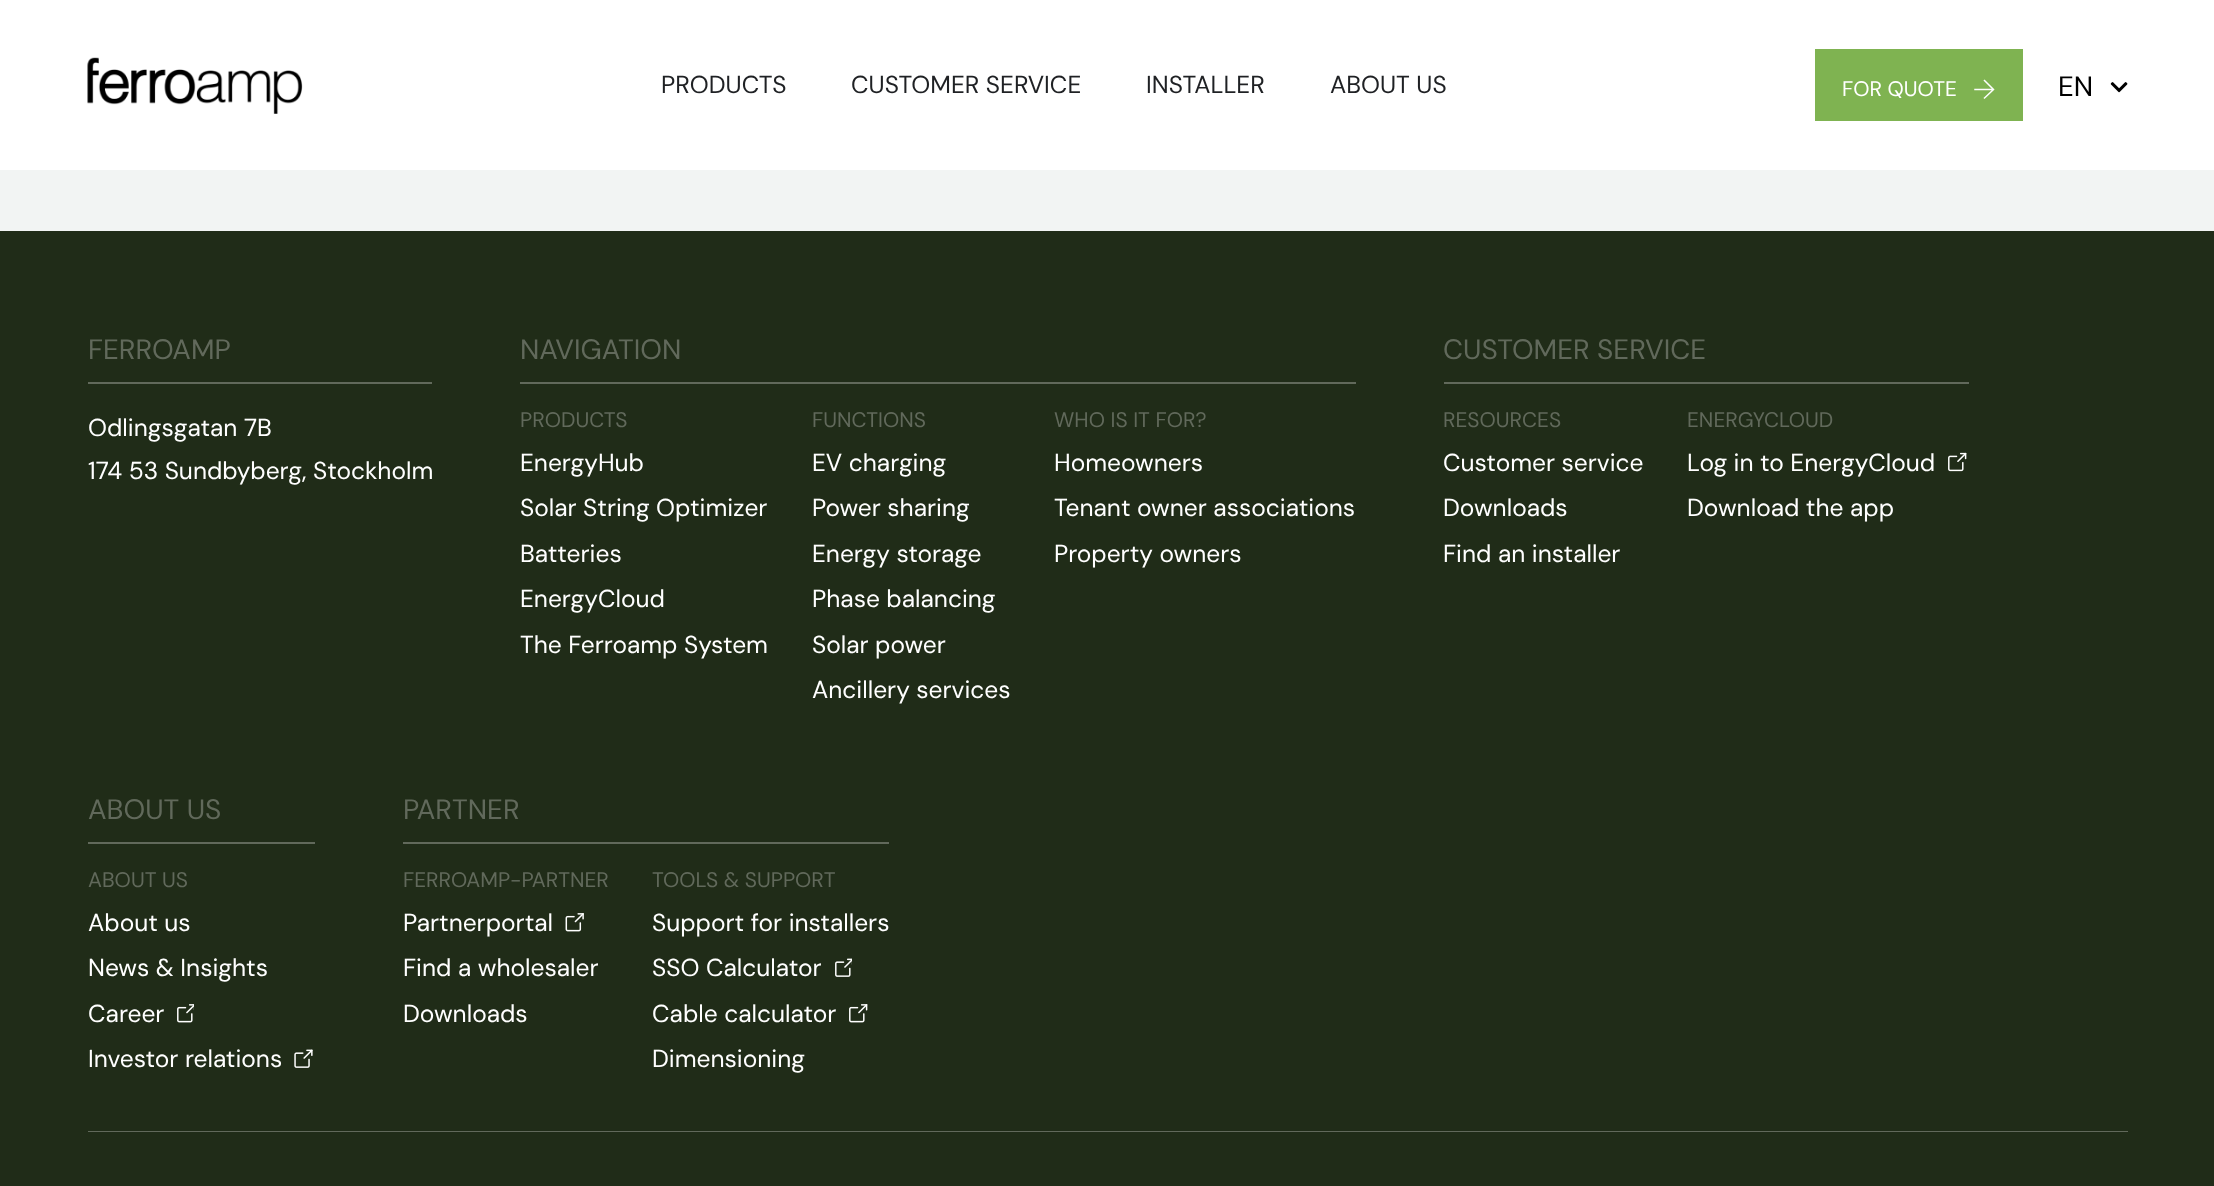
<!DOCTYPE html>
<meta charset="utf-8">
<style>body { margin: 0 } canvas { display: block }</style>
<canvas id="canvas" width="2214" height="1186"></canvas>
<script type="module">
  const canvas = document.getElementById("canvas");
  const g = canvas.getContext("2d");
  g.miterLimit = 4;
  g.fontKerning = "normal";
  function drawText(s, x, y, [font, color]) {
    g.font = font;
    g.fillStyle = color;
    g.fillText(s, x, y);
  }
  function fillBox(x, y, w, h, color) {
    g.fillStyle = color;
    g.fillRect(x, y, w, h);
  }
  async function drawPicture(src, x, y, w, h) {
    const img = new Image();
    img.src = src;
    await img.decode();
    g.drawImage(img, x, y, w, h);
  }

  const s1 = ["24.5px DM Sans", "#1F2124"];
  const s2 = ["21px DM Sans", "#FFFFFF"];
  const s3 = ["28px DM Sans", "#000000"];
  const s4 = ["28px DM Sans", "#61695B"];
  const s5 = ["24.5px DM Sans", "#FFFFFF"];
  const s6 = ["21px DM Sans", "#61695B"];

  fillBox(0, 0, 2214, 1186, "#F2F4F3");
  fillBox(0, 0, 2214, 170, "#FFFFFF");
  await drawPicture("pic1.png", 87, 57, 216, 57);
  drawText("PRODUCTS", 661, 93, s1);
  drawText("CUSTOMER SERVICE", 851, 93, s1);
  drawText("INSTALLER", 1146, 93, s1);
  drawText("ABOUT US", 1330, 93, s1);
  fillBox(1815, 49, 208, 72, "#7FB351");
  drawText("FOR QUOTE", 1842, 96, s2);
  g.beginPath();
  g.moveTo(1975, 89.5);
  g.lineTo(1992.5, 89.5);
  g.moveTo(1984.5, 98);
  g.lineTo(1993.5, 89.5);
  g.lineTo(1984.5, 80.5);
  g.strokeStyle = "#FFFFFF";
  g.lineWidth = 1.5;
  g.lineCap = "square";
  g.stroke();
  drawText("EN", 2058, 96, s3);
  await drawPicture("pic2.png", 2110, 82, 18, 11);
  fillBox(0, 231, 2214, 955, "#202C18");
  fillBox(88, 1131, 2040, 1, "#61695B");
  fillBox(88, 382, 344, 2, "#61695B");
  drawText("FERROAMP", 88, 359, s4);
  drawText("Odlingsgatan 7B", 88, 436, s5);
  drawText("174 53 Sundbyberg, Stockholm", 88, 479, s5);
  fillBox(520, 382, 836, 2, "#61695B");
  drawText("NAVIGATION", 520, 359, s4);
  drawText("PRODUCTS", 520, 427, s6);
  drawText("EnergyHub", 520, 471, s5);
  drawText("Solar String Optimizer", 520, 516, s5);
  drawText("Batteries", 520, 562, s5);
  drawText("EnergyCloud", 520, 607, s5);
  drawText("The Ferroamp System", 520, 653, s5);
  drawText("FUNCTIONS", 812, 427, s6);
  drawText("EV charging", 812, 471, s5);
  drawText("Power sharing", 812, 516, s5);
  drawText("Energy storage", 812, 562, s5);
  drawText("Phase balancing", 812, 607, s5);
  drawText("Solar power", 812, 653, s5);
  drawText("Ancillery services", 812, 698, s5);
  drawText("WHO IS IT FOR?", 1054, 427, s6);
  drawText("Homeowners", 1054, 471, s5);
  drawText("Tenant owner associations", 1054, 516, s5);
  drawText("Property owners", 1054, 562, s5);
  fillBox(1444, 382, 525, 2, "#61695B");
  drawText("CUSTOMER SERVICE", 1443, 359, s4);
  drawText("RESOURCES", 1443, 427, s6);
  drawText("Customer service", 1443, 471, s5);
  drawText("Downloads", 1443, 516, s5);
  drawText("Find an installer", 1443, 562, s5);
  drawText("ENERGYCLOUD", 1687, 427, s6);
  drawText("Log in to EnergyCloud", 1687, 471, s5);
  await drawPicture("pic3.png", 1948, 452, 19, 20);
  drawText("Download the app", 1687, 516, s5);
  fillBox(88, 842, 227, 2, "#61695B");
  drawText("ABOUT US", 88, 819, s4);
  drawText("ABOUT US", 88, 887, s6);
  drawText("About us", 88, 931, s5);
  drawText("News & Insights", 88, 976, s5);
  drawText("Career", 88, 1022, s5);
  await drawPicture("pic4.png", 177, 1004, 17, 19);
  drawText("Investor relations", 88, 1067, s5);
  await drawPicture("pic5.png", 294, 1049, 19, 19);
  fillBox(403, 842, 486, 2, "#61695B");
  drawText("PARTNER", 403, 819, s4);
  drawText("FERROAMP-PARTNER", 403, 887, s6);
  drawText("Partnerportal", 403, 931, s5);
  await drawPicture("pic6.png", 565, 913, 19, 19);
  drawText("Find a wholesaler", 403, 976, s5);
  drawText("Downloads", 403, 1022, s5);
  drawText("TOOLS & SUPPORT", 652, 887, s6);
  drawText("Support for installers", 652, 931, s5);
  drawText("SSO Calculator", 652, 976, s5);
  await drawPicture("pic7.png", 835, 958, 17, 19);
  drawText("Cable calculator", 652, 1022, s5);
  await drawPicture("pic8.png", 849, 1004, 19, 19);
  drawText("Dimensioning", 652, 1067, s5);
</script>
